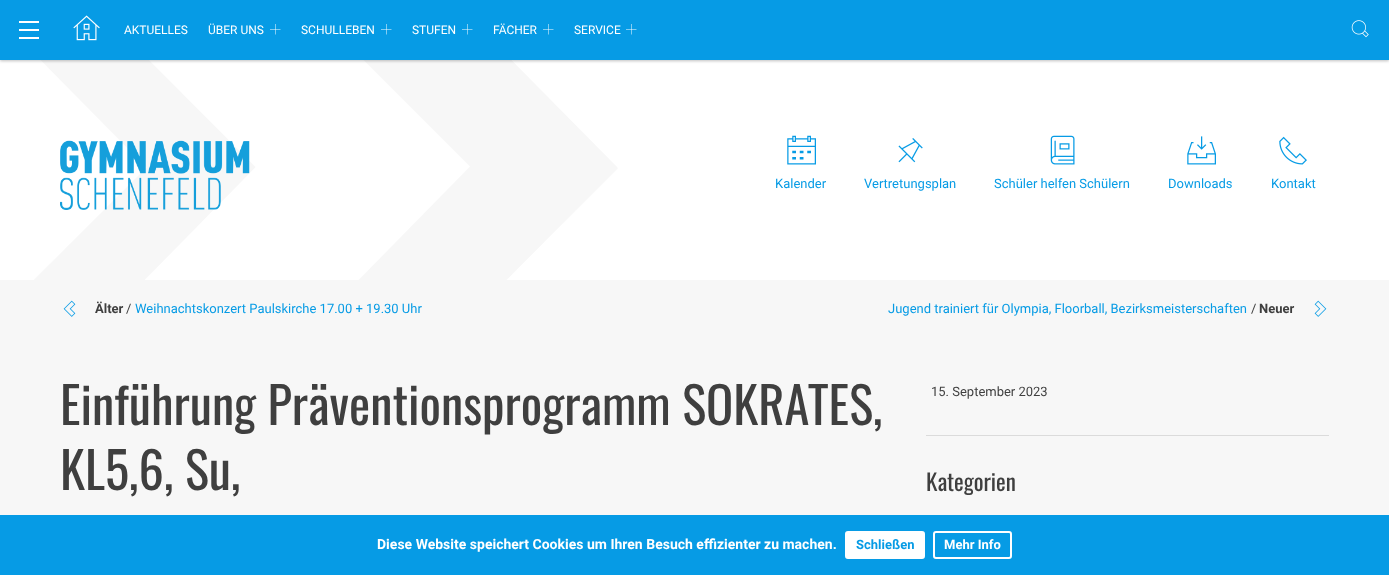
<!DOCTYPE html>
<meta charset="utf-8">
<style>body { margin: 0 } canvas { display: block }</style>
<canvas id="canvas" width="1389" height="575"></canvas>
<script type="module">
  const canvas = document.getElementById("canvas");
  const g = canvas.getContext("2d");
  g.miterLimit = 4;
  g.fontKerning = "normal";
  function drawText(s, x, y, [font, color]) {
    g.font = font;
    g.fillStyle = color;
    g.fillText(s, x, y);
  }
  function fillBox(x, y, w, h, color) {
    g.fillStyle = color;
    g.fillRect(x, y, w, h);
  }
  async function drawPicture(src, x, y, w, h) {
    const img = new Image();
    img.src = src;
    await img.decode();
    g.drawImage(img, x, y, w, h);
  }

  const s1 = ["12px Roboto", "#FFFFFF"];
  const s2 = ["13px Roboto", "#069BE5"];
  const s3 = ["bold 13px Roboto", "#3F3F3F"];
  const s4 = ["13px Roboto", "#3F3F3F"];
  const s5 = ["50.5px Oswald", "#3F3F3F"];
  const s6 = ["23px Oswald", "#3F3F3F"];
  const s7 = ["bold 14px Roboto", "#FFFFFF"];
  const s8 = ["bold 13px Roboto", "#069BE5"];
  const s9 = ["bold 13px Roboto", "#FFFFFF"];

  fillBox(0, 0, 1389, 575, "#F7F7F7");
  fillBox(0, 60, 1389, 220, "#FFFFFF");
  await drawPicture("pic4.png", 34, 60, 584, 220);
  g.fillStyle = "rgba(0, 0, 0, 0.25)";
  g.filter = "blur(1.5px)";
  g.beginPath();
  g.rect(0, 1, 1389, 60);
  g.fill();
  g.filter = "none";
  fillBox(0, 0, 1389, 60, "#069BE5");
  fillBox(19, 29, 20, 2, "#FFFFFF");
  fillBox(19, 21, 20, 2, "#FFFFFF");
  fillBox(19, 37, 20, 2, "#FFFFFF");
  await drawPicture("pic1.png", 73, 15, 27, 26);
  drawText("AKTUELLES", 124, 34, s1);
  drawText("ÜBER UNS", 208, 34, s1);
  await drawPicture("pic2.png", 270, 24, 11, 11);
  drawText("SCHULLEBEN", 301, 34, s1);
  await drawPicture("pic2.png", 381, 24, 11, 11);
  drawText("STUFEN", 412, 34, s1);
  await drawPicture("pic2.png", 462, 24, 11, 11);
  drawText("FÄCHER", 493, 34, s1);
  await drawPicture("pic2.png", 543, 24, 11, 11);
  drawText("SERVICE", 574, 34, s1);
  await drawPicture("pic2.png", 626, 24, 11, 11);
  await drawPicture("pic3.png", 1351, 20, 18, 18);
  await drawPicture("pic5.png", 60, 140, 190, 70);
  await drawPicture("pic6.png", 787, 135, 29, 30);
  drawText("Kalender", 775, 188, s2);
  await drawPicture("pic7.png", 898, 138, 25, 25);
  drawText("Vertretungsplan", 864, 188, s2);
  await drawPicture("pic8.png", 1050, 135, 25, 30);
  drawText("Schüler helfen Schülern", 994, 188, s2);
  await drawPicture("pic9.png", 1187, 136, 29, 29);
  drawText("Downloads", 1168, 188, s2);
  await drawPicture("pic10.png", 1279, 136, 28, 29);
  drawText("Kontakt", 1271, 188, s2);
  await drawPicture("pic11.png", 63, 300, 13, 17);
  drawText("Älter", 95, 313, s3);
  drawText("/", 126, 313, s4);
  drawText("Weihnachtskonzert Paulskirche 17.00 + 19.30 Uhr", 135, 313, s2);
  drawText("Jugend trainiert für Olympia, Floorball, Bezirksmeisterschaften", 888, 313, s2);
  drawText("/", 1251, 313, s4);
  drawText("Neuer", 1259, 313, s3);
  await drawPicture("pic12.png", 1314, 300, 13, 17);
  drawText("Einführung Präventionsprogramm SOKRATES,", 60, 425, s5);
  drawText("KL5,6, Su,", 60, 490, s5);
  drawText("15. September 2023", 931, 396, s4);
  fillBox(926, 435, 403, 1, "#DBDBDB");
  drawText("Kategorien", 926, 491, s6);
  fillBox(0, 515, 1389, 60, "#069BE5");
  drawText("Diese Website speichert Cookies um Ihren Besuch effizienter zu machen.", 377, 549, s7);
  g.beginPath();
  g.roundRect(846, 532, 78, 26, 2);
  g.fill();
  g.strokeStyle = "#FFFFFF";
  g.lineWidth = 2;
  g.stroke();
  drawText("Schließen", 856, 549, s8);
  g.beginPath();
  g.roundRect(934, 532, 77, 26, 2);
  g.stroke();
  drawText("Mehr Info", 944, 549, s9);
</script>
